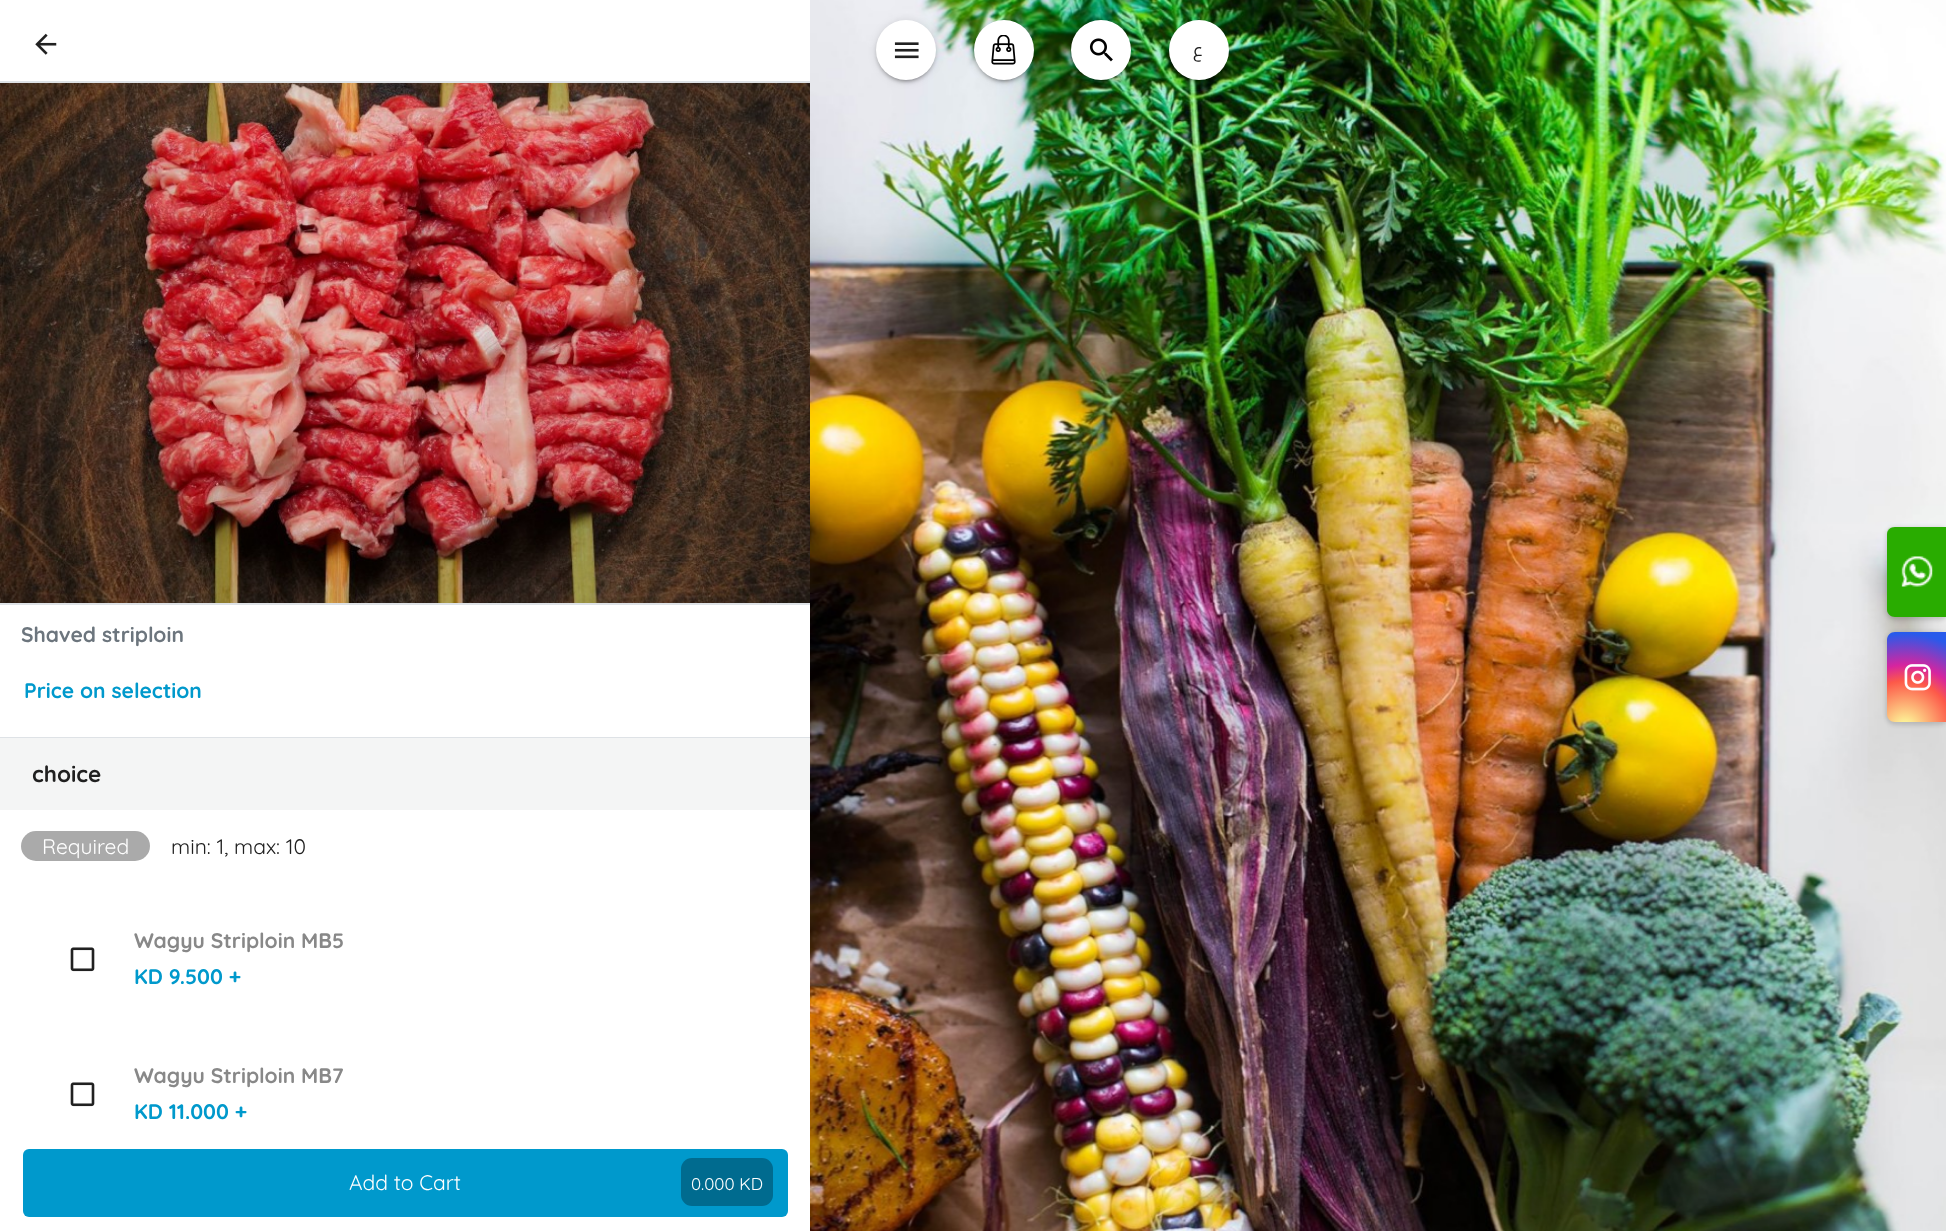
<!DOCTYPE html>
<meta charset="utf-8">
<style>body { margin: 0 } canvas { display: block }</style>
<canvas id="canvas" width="1946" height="1231"></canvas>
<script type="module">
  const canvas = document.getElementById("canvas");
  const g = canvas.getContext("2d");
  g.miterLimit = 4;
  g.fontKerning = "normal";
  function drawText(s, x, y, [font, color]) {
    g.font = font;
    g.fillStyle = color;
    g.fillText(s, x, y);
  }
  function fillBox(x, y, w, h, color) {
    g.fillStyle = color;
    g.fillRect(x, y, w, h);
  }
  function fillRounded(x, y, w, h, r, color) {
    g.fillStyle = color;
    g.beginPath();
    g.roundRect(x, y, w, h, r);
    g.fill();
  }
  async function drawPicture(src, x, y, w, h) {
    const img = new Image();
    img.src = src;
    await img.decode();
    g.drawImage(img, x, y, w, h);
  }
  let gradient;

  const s1 = ["18px Cairo", "#202020"];
  const s2 = ["300 21px Quicksand", "#6C757D"];
  const s3 = ["300 21px Quicksand", "#0099CC"];
  const s4 = ["300 22.5px Quicksand", "#202020"];
  const s5 = ["300 21px 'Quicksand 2'", "#FFFFFF"];
  const s6 = ["300 21px 'Quicksand 2'", "#202020"];
  const s7 = ["300 21px Quicksand", "#888888"];
  const s8 = ["300 17px 'Quicksand 2'", "#FFFFFF"];

  fillBox(0, 0, 1946, 1231, "#FFFFFF");
  fillBox(0, 603, 812, 2, "#DEE2E6");
  fillBox(0, 737, 812, 1, "#DEE2E6");
  await drawPicture("pic1.png", 810, 0, 1136, 1231);
  g.fillStyle = "rgba(0, 0, 0, 0.12)";
  g.filter = "blur(4px)";
  g.beginPath();
  g.roundRect(876, 21, 60, 60, 30);
  g.fill();
  g.filter = "none";
  g.fillStyle = "rgba(0, 0, 0, 0.14)";
  g.filter = "blur(1.5px)";
  g.beginPath();
  g.roundRect(876, 23, 60, 60, 30);
  g.fill();
  g.filter = "none";
  g.fillStyle = "rgba(0, 0, 0, 0.2)";
  g.filter = "blur(1px)";
  g.beginPath();
  g.roundRect(879, 27, 54, 54, 27);
  g.fill();
  g.filter = "none";
  g.fillStyle = "#FFFFFF";
  g.beginPath();
  g.arc(906, 50, 30, 0, Math.PI * 2);
  g.fill();
  await drawPicture("pic2.png", 894, 42, 25, 17);
  g.fillStyle = "rgba(0, 0, 0, 0.12)";
  g.filter = "blur(4px)";
  g.beginPath();
  g.roundRect(974, 21, 60, 60, 30);
  g.fill();
  g.filter = "none";
  g.fillStyle = "rgba(0, 0, 0, 0.14)";
  g.filter = "blur(1.5px)";
  g.beginPath();
  g.roundRect(974, 23, 60, 60, 30);
  g.fill();
  g.filter = "none";
  g.fillStyle = "rgba(0, 0, 0, 0.2)";
  g.filter = "blur(1px)";
  g.beginPath();
  g.roundRect(977, 27, 54, 54, 27);
  g.fill();
  g.filter = "none";
  g.fillStyle = "#FFFFFF";
  g.beginPath();
  g.arc(1004, 50, 30, 0, Math.PI * 2);
  g.fill();
  await drawPicture("pic3.png", 991, 35, 25, 30);
  g.fillStyle = "rgba(0, 0, 0, 0.12)";
  g.filter = "blur(4px)";
  g.beginPath();
  g.roundRect(1071, 21, 60, 60, 30);
  g.fill();
  g.filter = "none";
  g.fillStyle = "rgba(0, 0, 0, 0.14)";
  g.filter = "blur(1.5px)";
  g.beginPath();
  g.roundRect(1071, 23, 60, 60, 30);
  g.fill();
  g.filter = "none";
  g.fillStyle = "rgba(0, 0, 0, 0.2)";
  g.filter = "blur(1px)";
  g.beginPath();
  g.roundRect(1074, 27, 54, 54, 27);
  g.fill();
  g.filter = "none";
  g.fillStyle = "#FFFFFF";
  g.beginPath();
  g.arc(1101, 50, 30, 0, Math.PI * 2);
  g.fill();
  await drawPicture("pic4.png", 1089, 38, 24, 24);
  g.fillStyle = "rgba(0, 0, 0, 0.12)";
  g.filter = "blur(4px)";
  g.beginPath();
  g.roundRect(1169, 21, 60, 60, 30);
  g.fill();
  g.filter = "none";
  g.fillStyle = "rgba(0, 0, 0, 0.14)";
  g.filter = "blur(1.5px)";
  g.beginPath();
  g.roundRect(1169, 23, 60, 60, 30);
  g.fill();
  g.filter = "none";
  g.fillStyle = "rgba(0, 0, 0, 0.2)";
  g.filter = "blur(1px)";
  g.beginPath();
  g.roundRect(1172, 27, 54, 54, 27);
  g.fill();
  g.filter = "none";
  g.fillStyle = "#FFFFFF";
  g.beginPath();
  g.arc(1199, 50, 30, 0, Math.PI * 2);
  g.fill();
  g.direction = "rtl";
  drawText("ع", 1203, 56, s1);
  fillBox(0, 81, 810, 2, "#DEE2E6");
  await drawPicture("pic5.png", 35, 33, 22, 22);
  await drawPicture("pic6.png", 0, 83, 810, 520);
  g.direction = "ltr";
  drawText("Shaved striploin", 21, 642, s2);
  drawText("Price on selection", 24, 698, s3);
  fillBox(0, 738, 810, 72, "#F4F5F5");
  drawText("choice", 32, 782, s4);
  fillRounded(21, 831, 129, 30, 15, "#AAAAAA");
  drawText("Required", 42, 854, s5);
  drawText("min: 1, max: 10", 171, 854, s6);
  await drawPicture("pic7.png", 70, 947, 25, 25);
  drawText("Wagyu Striploin MB5", 134, 948, s7);
  drawText("KD 9.500 +", 134, 984, s3);
  await drawPicture("pic7.png", 70, 1082, 25, 25);
  drawText("Wagyu Striploin MB7", 134, 1083, s7);
  drawText("KD 11.000 +", 134, 1119, s3);
  fillRounded(23, 1149, 765, 68, 6, "#0099CC");
  drawText("Add to Cart", 349, 1190, s5);
  fillRounded(681, 1158, 92, 48, 11, "#006B8F");
  drawText("0.000 KD", 691, 1190, s8);
  g.fillStyle = "rgba(0, 0, 0, 0.15)";
  g.filter = "blur(2px)";
  g.beginPath();
  g.roundRect(1886, 527, 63, 93, 9);
  g.fill();
  g.filter = "none";
  g.fillStyle = "#29AC00";
  g.beginPath();
  g.moveTo(1895, 527);
  g.lineTo(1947, 527);
  g.lineTo(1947, 617);
  g.lineTo(1895, 617);
  g.bezierCurveTo(1890.5, 617, 1887, 613.5, 1887, 609);
  g.lineTo(1887, 535);
  g.bezierCurveTo(1887, 530.5, 1890.5, 527, 1895, 527);
  g.closePath();
  g.fill();
  await drawPicture("pic8.png", 1887, 527, 47, 89);
  g.fillStyle = "rgba(0, 0, 0, 0.15)";
  g.filter = "blur(2px)";
  g.beginPath();
  g.roundRect(1886, 632, 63, 93, 9);
  g.fill();
  g.filter = "none";
  gradient = g.createRadialGradient(1905, 728, 0, 1905, 728, 105);
  gradient.addColorStop(0, "#FDF497");
  gradient.addColorStop(0.05, "#FDF497");
  gradient.addColorStop(0.45, "#FD5949");
  gradient.addColorStop(0.6, "#D6249F");
  gradient.addColorStop(0.9, "#285AEB");
  g.fillStyle = gradient;
  g.beginPath();
  g.moveTo(1895, 632);
  g.lineTo(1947, 632);
  g.lineTo(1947, 722);
  g.lineTo(1895, 722);
  g.bezierCurveTo(1890.5, 722, 1887, 718.5, 1887, 714);
  g.lineTo(1887, 640);
  g.bezierCurveTo(1887, 635.5, 1890.5, 632, 1895, 632);
  g.closePath();
  g.fill();
  await drawPicture("pic9.png", 1904, 664, 27, 27);
</script>
